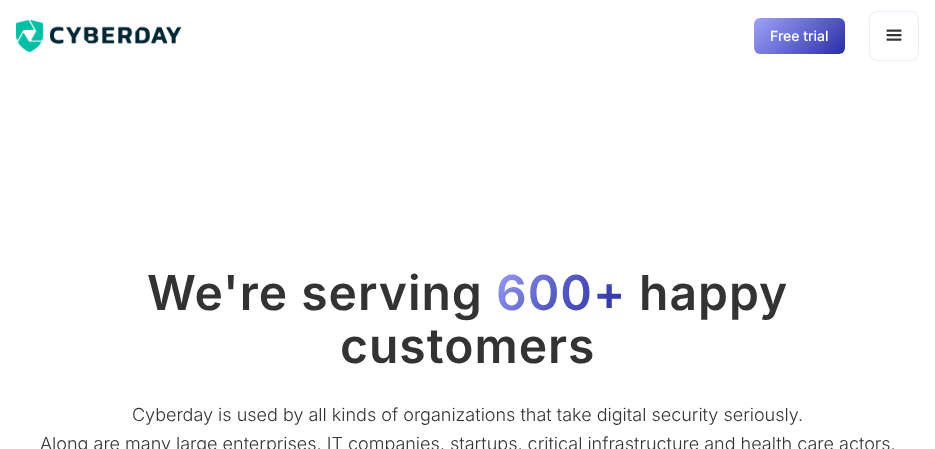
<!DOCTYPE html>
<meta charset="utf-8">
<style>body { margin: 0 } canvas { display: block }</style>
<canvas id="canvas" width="935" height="449"></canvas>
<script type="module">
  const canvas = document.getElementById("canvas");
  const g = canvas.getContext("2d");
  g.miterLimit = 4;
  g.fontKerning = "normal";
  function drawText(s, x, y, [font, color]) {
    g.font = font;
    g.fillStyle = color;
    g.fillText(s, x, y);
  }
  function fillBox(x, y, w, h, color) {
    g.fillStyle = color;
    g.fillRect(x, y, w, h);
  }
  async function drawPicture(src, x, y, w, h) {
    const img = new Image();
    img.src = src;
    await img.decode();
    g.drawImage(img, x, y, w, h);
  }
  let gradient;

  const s1 = ["500 14px Inter", "#FFFFFF"];
  const s2 = ["600 48px Inter", "#333333"];
  const s3 = ["300 18px Inter", "#333333"];

  fillBox(0, 0, 935, 449, "#FFFFFF");
  await drawPicture("pic1.png", 16, 20, 165, 32);
  gradient = g.createLinearGradient(768, 4.2, 831, 68);
  gradient.addColorStop(0, "#9EA3FA");
  gradient.addColorStop(0.63, "#555AC4");
  gradient.addColorStop(1, "#292EA3");
  g.fillStyle = gradient;
  g.beginPath();
  g.roundRect(754, 18, 91, 36, 6);
  g.fill();
  drawText("Free trial", 770, 41, s1);
  g.beginPath();
  g.roundRect(869.5, 11.5, 49, 49, 7.5);
  g.strokeStyle = "#E8EBF8";
  g.stroke();
  await drawPicture("pic2.png", 886, 29, 16, 12);
  g.letterSpacing = "1px";
  drawText("We're serving", 147, 310, s2);
  gradient = g.createLinearGradient(504, 251, 617, 334);
  gradient.addColorStop(0, "#9EA3FA");
  gradient.addColorStop(0.49, "#555AC4");
  gradient.addColorStop(1, "#292EA3");
  g.fillStyle = gradient;
  g.fillText("600+", 496, 310);
  drawText("happy", 639, 310, s2);
  drawText("customers", 340, 363, s2);
  g.letterSpacing = "0px";
  drawText("Cyberday is used by all kinds of organizations that take digital security seriously.", 132, 421, s3);
  drawText("Along are many large enterprises, IT companies, startups, critical infrastructure and health care actors.", 40, 450, s3);
</script>
